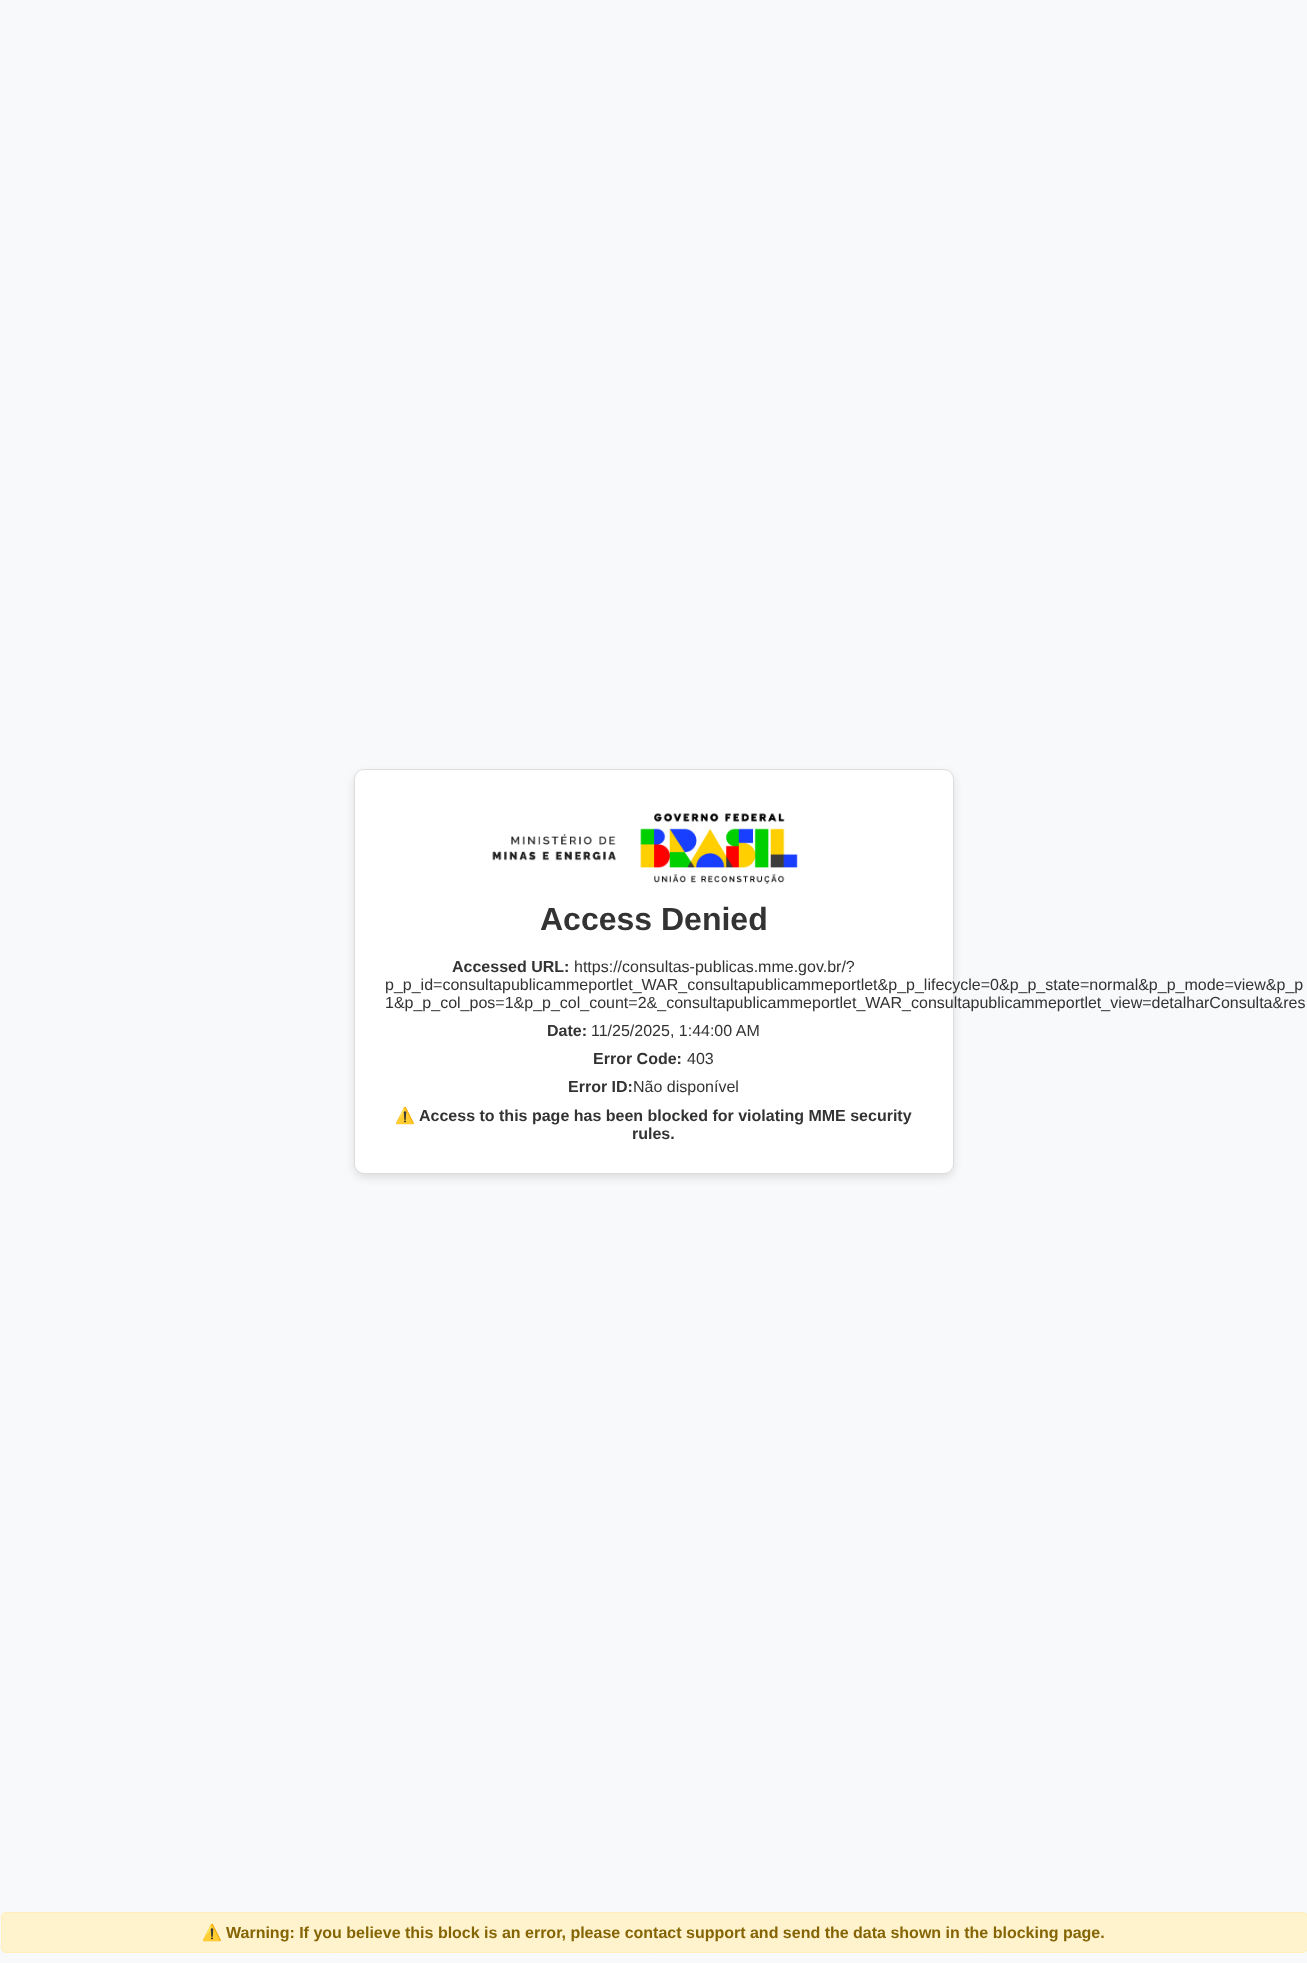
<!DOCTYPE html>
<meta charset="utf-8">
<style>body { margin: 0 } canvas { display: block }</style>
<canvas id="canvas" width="1307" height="1963"></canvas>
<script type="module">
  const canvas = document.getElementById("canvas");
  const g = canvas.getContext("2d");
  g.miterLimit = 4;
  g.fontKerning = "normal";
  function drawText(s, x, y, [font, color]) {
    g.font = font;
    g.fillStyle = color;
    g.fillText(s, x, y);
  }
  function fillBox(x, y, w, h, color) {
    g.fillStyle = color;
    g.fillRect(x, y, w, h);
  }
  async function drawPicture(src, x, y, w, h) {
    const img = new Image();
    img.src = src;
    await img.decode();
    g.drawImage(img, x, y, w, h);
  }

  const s1 = ["bold 32px Liberation Sans", "#333333"];
  const s2 = ["bold 16px Liberation Sans", "#333333"];
  const s3 = ["16px Liberation Sans", "#333333"];
  const s4 = ["bold 16px Noto Color Emoji", "#333333"];
  const s5 = ["bold 16px Noto Color Emoji", "#856404"];
  const s6 = ["bold 16px Liberation Sans", "#856404"];

  fillBox(0, 0, 1307, 1963, "#F8F9FA");
  g.fillStyle = "rgba(0, 0, 0, 0.1)";
  g.filter = "blur(4px)";
  g.beginPath();
  g.roundRect(354, 773, 600, 405, 10);
  g.fill();
  g.filter = "none";
  g.fillStyle = "#FFFFFF";
  g.beginPath();
  g.roundRect(354.5, 769.5, 599, 404, 9.5);
  g.fill();
  g.strokeStyle = "#DDDDDD";
  g.stroke();
  await drawPicture("pic1.png", 492, 813, 306, 71);
  drawText("Access Denied", 540, 930, s1);
  drawText("Accessed URL:", 452, 972, s2);
  drawText("https://consultas-publicas.mme.gov.br/?", 574, 972, s3);
  drawText("p_p_id=consultapublicammeportlet_WAR_consultapublicammeportlet&p_p_lifecycle=0&p_p_state=normal&p_p_mode=view&p_p", 385, 990, s3);
  drawText("1&p_p_col_pos=1&p_p_col_count=2&_consultapublicammeportlet_WAR_consultapublicammeportlet_view=detalharConsulta&res", 385, 1008, s3);
  drawText("Date:", 547, 1036, s2);
  drawText("11/25/2025, 1:44:00 AM", 591, 1036, s3);
  drawText("Error Code:", 593, 1064, s2);
  drawText("403", 687, 1064, s3);
  drawText("Error ID:", 568, 1092, s2);
  drawText("Não disponível", 633, 1092, s3);
  drawText("⚠️", 395, 1121, s4);
  drawText("Access to this page has been blocked for violating MME security", 419, 1121, s2);
  drawText("rules.", 632, 1139, s2);
  g.fillStyle = "#FFF3CD";
  g.beginPath();
  g.roundRect(1.5, 1912.5, 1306, 40, 4.5);
  g.fill();
  g.strokeStyle = "#FFEEBA";
  g.stroke();
  drawText("⚠️", 202, 1938, s5);
  drawText("Warning: If you believe this block is an error, please contact support and send the data shown in the blocking page.", 226, 1938, s6);
</script>
